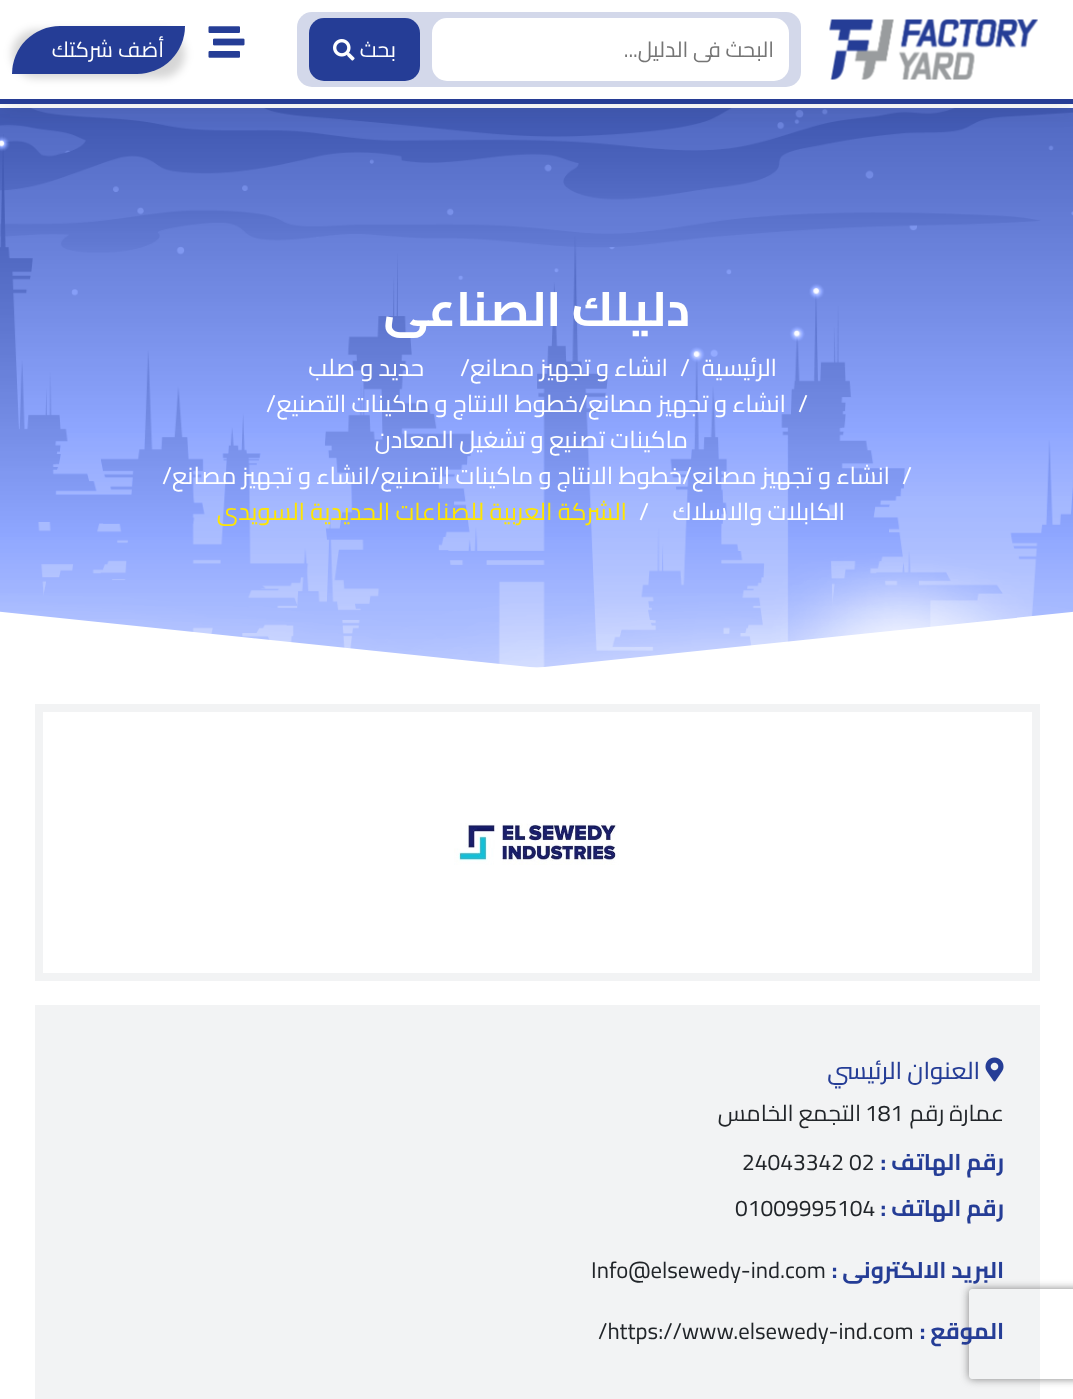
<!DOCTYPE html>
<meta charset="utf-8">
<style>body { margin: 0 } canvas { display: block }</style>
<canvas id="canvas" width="1073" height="1399"></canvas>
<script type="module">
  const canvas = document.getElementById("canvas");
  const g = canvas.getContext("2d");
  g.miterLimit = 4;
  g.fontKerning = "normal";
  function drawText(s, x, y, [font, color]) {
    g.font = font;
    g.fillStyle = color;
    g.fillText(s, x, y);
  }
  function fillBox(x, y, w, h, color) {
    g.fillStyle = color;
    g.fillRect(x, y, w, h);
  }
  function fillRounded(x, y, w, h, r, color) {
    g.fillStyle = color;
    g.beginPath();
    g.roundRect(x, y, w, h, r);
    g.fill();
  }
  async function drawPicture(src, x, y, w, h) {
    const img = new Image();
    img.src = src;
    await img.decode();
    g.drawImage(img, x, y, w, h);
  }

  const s1 = ["21.5px Cairo", "#757575"];
  const s2 = ["21.5px Cairo", "#FFFFFF"];
  const s3 = ["bold 48px Cairo", "#FFFFFF"];
  const s4 = ["24px Cairo", "#FFFFFF"];
  const s5 = ["24px Cairo", "#FFE600"];
  const s6 = ["500 24px Cairo", "#253D96"];
  const s7 = ["22.75px Cairo", "#212529"];
  const s8 = ["bold 22.75px Cairo", "#253D96"];

  fillBox(0, 0, 1073, 1399, "#FFFFFF");
  await drawPicture("pic4.png", 0, 108, 1073, 560);
  g.fillStyle = "rgba(25, 25, 25, 0.1)";
  g.filter = "blur(11px)";
  g.beginPath();
  g.rect(0, 3, 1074, 104);
  g.fill();
  g.filter = "none";
  fillBox(0, 0, 1073, 99, "#FFFFFF");
  fillBox(0, 99, 1073, 5, "#273D95");
  await drawPicture("pic1.png", 829, 19, 209, 61);
  fillRounded(297, 12, 504, 75, 15, "#D3D8EA");
  fillRounded(432, 18, 357, 63, 15, "#FFFFFF");
  g.direction = "rtl";
  drawText("البحث فى الدليل...", 774, 57, s1);
  fillRounded(309, 18, 111, 63, 15, "#253D96");
  drawText("بحث", 396, 57, s2);
  await drawPicture("pic2.png", 333, 39, 22, 22);
  await drawPicture("pic3.png", 208, 26, 37, 32);
  g.fillStyle = "rgba(0, 0, 0, 0.16)";
  g.filter = "blur(4.5px)";
  g.beginPath();
  g.roundRect(12, 30, 173, 48, 48);
  g.fill();
  g.filter = "none";
  g.fillStyle = "#253D96";
  g.beginPath();
  g.roundRect(12, 26, 173, 48, [48, 0, 48, 0]);
  g.fill();
  g.letterSpacing = "1.25px";
  g.wordSpacing = "-1px";
  drawText("أضف شركتك", 164, 57, s2);
  fillBox(35, 1005, 1005, 394, "#F2F3F4");
  g.save();
  g.beginPath();
  g.moveTo(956, 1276);
  g.lineTo(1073, 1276);
  g.lineTo(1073, 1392);
  g.lineTo(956, 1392);
  g.closePath();
  g.moveTo(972, 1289);
  g.lineTo(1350, 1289);
  g.bezierCurveTo(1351.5, 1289, 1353, 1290.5, 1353, 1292);
  g.lineTo(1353, 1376);
  g.bezierCurveTo(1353, 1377.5, 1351.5, 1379, 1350, 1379);
  g.lineTo(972, 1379);
  g.bezierCurveTo(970.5, 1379, 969, 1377.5, 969, 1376);
  g.lineTo(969, 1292);
  g.bezierCurveTo(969, 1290.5, 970.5, 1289, 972, 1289);
  g.closePath();
  g.clip("evenodd");
  g.fillStyle = "#808080";
  g.filter = "blur(4px)";
  g.beginPath();
  g.roundRect(969, 1289, 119, 90, 3);
  g.fill();
  g.filter = "none";
  g.restore();
  g.letterSpacing = "0px";
  g.wordSpacing = "0px";
  drawText("دليلك الصناعى", 690, 326, s3);
  drawText("الرئيسية", 777, 376, s4);
  g.direction = "ltr";
  drawText("/", 680, 376, s4);
  g.direction = "rtl";
  drawText("انشاء و تجهيز مصانع", 668, 376, s4);
  g.direction = "ltr";
  drawText("/", 460, 376, s4);
  g.direction = "rtl";
  drawText("حديد و صلب", 424, 376, s4);
  g.direction = "ltr";
  drawText("/", 798, 412, s4);
  g.direction = "rtl";
  drawText("انشاء و تجهيز مصانع", 786, 412, s4);
  g.direction = "ltr";
  drawText("/", 578, 412, s4);
  g.direction = "rtl";
  drawText("خطوط الانتاج و ماكينات التصنيع", 578, 412, s4);
  g.direction = "ltr";
  drawText("/", 266, 412, s4);
  g.direction = "rtl";
  drawText("ماكينات تصنيع و تشغيل المعادن", 688, 448, s4);
  g.direction = "ltr";
  drawText("/", 902, 484, s4);
  g.direction = "rtl";
  drawText("انشاء و تجهيز مصانع", 890, 484, s4);
  g.direction = "ltr";
  drawText("/", 682, 484, s4);
  g.direction = "rtl";
  drawText("خطوط الانتاج و ماكينات التصنيع", 682, 484, s4);
  g.direction = "ltr";
  drawText("/", 370, 484, s4);
  g.direction = "rtl";
  drawText("انشاء و تجهيز مصانع", 370, 484, s4);
  g.direction = "ltr";
  drawText("/", 162, 484, s4);
  g.direction = "rtl";
  drawText("الكابلات والاسلاك", 845, 520, s4);
  g.direction = "ltr";
  drawText("/", 639, 520, s4);
  g.direction = "rtl";
  drawText("الشركة العربية للصناعات الحديدية السويدى", 627, 520, s5);
  g.strokeStyle = "#F2F3F4";
  g.lineWidth = 8;
  g.strokeRect(39, 708, 997, 269);
  await drawPicture("pic5.png", 454, 823, 165, 42);
  await drawPicture("pic6.png", 985, 1057, 19, 25);
  drawText("العنوان الرئيسي", 980, 1079, s6);
  drawText("عمارة رقم", 1004, 1121, s7);
  g.direction = "ltr";
  drawText("181", 865, 1121, s7);
  g.direction = "rtl";
  drawText("التجمع الخامس", 861, 1121, s7);
  drawText("رقم الهاتف :", 1004, 1170, s8);
  g.direction = "ltr";
  drawText("24043342 02", 742, 1170, s7);
  g.direction = "rtl";
  drawText("رقم الهاتف :", 1004, 1216, s8);
  g.direction = "ltr";
  drawText("01009995104", 735, 1216, s7);
  g.direction = "rtl";
  drawText("البريد الالكترونى :", 1004, 1278, s8);
  g.direction = "ltr";
  drawText("Info@elsewedy-ind.com", 591, 1278, s7);
  g.direction = "rtl";
  drawText("الموقع :", 1004, 1339, s8);
  g.direction = "ltr";
  drawText("/https://www.elsewedy-ind.com", 598, 1339, s7);
</script>
